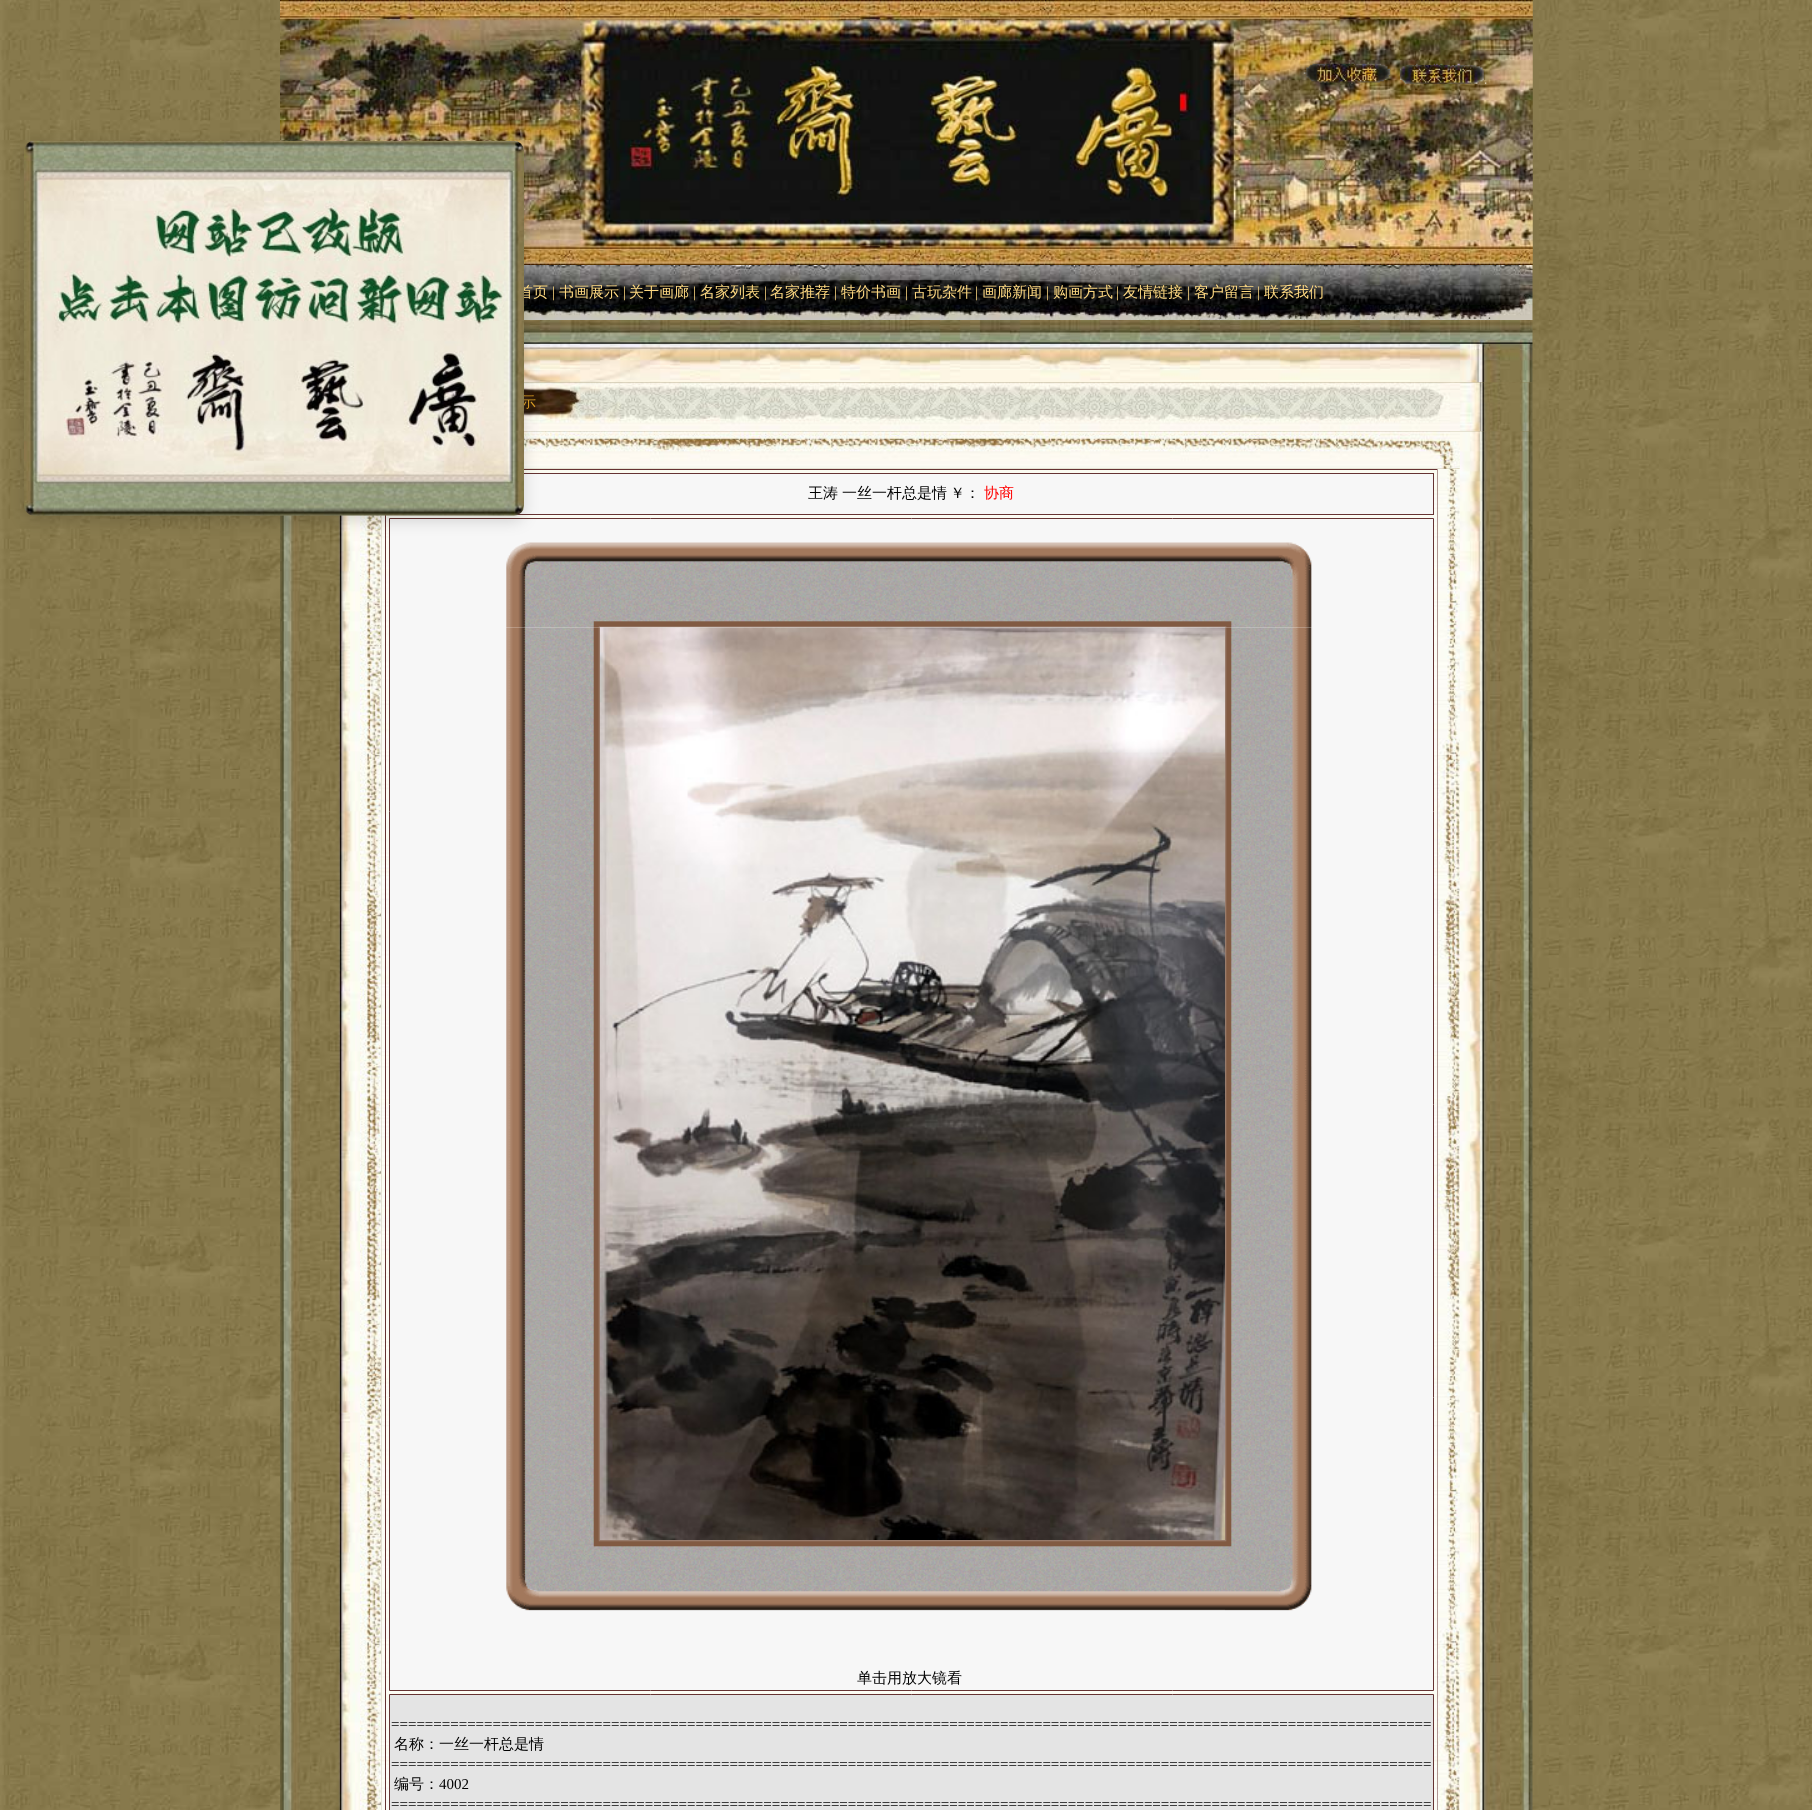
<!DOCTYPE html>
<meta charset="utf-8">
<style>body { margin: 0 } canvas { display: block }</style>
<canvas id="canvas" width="1812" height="1810"></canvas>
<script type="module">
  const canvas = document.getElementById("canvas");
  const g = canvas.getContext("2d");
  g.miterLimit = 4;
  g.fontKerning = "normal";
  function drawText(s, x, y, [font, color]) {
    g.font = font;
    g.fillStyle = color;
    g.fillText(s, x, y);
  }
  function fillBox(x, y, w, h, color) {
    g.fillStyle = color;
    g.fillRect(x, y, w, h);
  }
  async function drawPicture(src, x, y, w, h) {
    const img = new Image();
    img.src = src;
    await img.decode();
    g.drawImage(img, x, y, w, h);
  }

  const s1 = ["500 15px WenQuanYi Zen Hei", "#FDD881"];
  const s2 = ["500 15px WenQuanYi Zen Hei", "#D89C24"];
  const s3 = ["15px Liberation Serif", "#FDD881"];
  const s4 = ["500 15px WenQuanYi Zen Hei", "#000000"];
  const s5 = ["500 15px WenQuanYi Zen Hei", "#FF0000"];
  const s6 = ["15px Liberation Serif", "#000000"];

  fillBox(0, 0, 1812, 1810, "#FFFFFF");
  await drawPicture("pic1.png", 0, 0, 1812, 1810);
  await drawPicture("pic3.png", 280, 0, 1253, 265);
  await drawPicture("pic7.png", 524, 265, 1009, 55);
  await drawPicture("pic8.png", 524, 320, 1009, 63);
  await drawPicture("pic9.png", 524, 382, 1009, 50);
  await drawPicture("pic10.png", 280, 515, 80, 1295);
  await drawPicture("pic11.png", 524, 431, 936, 38);
  await drawPicture("pic12.png", 360, 515, 22, 1295);
  await drawPicture("pic13.png", 381, 468, 1057, 1342);
  g.strokeStyle = "#663333";
  g.strokeRect(385.5, 469.5, 1052, 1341);
  fillBox(519, 474, 914, 40, "#F7F7F7");
  g.strokeRect(389.5, 473.5, 1044, 41);
  g.beginPath();
  g.rect(389.5, 518.5, 1044, 1172);
  g.fill();
  g.stroke();
  await drawPicture("pic17.png", 506, 627, 94, 913);
  await drawPicture("pic14.png", 506, 542, 94, 86);
  g.fillStyle = "rgba(0, 0, 0, 0.15)";
  g.filter = "blur(7.5px)";
  g.beginPath();
  g.roundRect(24, 146, 500, 375, 10);
  g.fill();
  g.filter = "none";
  drawText("首页", 518, 297, s1);
  drawText("示", 521, 407, s2);
  await drawPicture("pic2.png", 24, 140, 500, 376);
  await drawPicture("pic4.png", 1532, 0, 1, 265);
  await drawPicture("pic5.png", 1303, 62, 88, 22);
  await drawPicture("pic6.png", 1399, 63, 88, 21);
  drawText("|", 552, 297, s3);
  drawText("书画展示", 559, 297, s1);
  drawText("|", 623, 297, s3);
  drawText("关于画廊", 629, 297, s1);
  drawText("|", 693, 297, s3);
  drawText("名家列表", 700, 297, s1);
  drawText("|", 764, 297, s3);
  drawText("名家推荐", 770, 297, s1);
  drawText("|", 834, 297, s3);
  drawText("特价书画", 841, 297, s1);
  drawText("|", 905, 297, s3);
  drawText("古玩杂件", 912, 297, s1);
  drawText("|", 975, 297, s3);
  drawText("画廊新闻", 982, 297, s1);
  drawText("|", 1046, 297, s3);
  drawText("购画方式", 1053, 297, s1);
  drawText("|", 1116, 297, s3);
  drawText("友情链接", 1123, 297, s1);
  drawText("|", 1187, 297, s3);
  drawText("客户留言", 1194, 297, s1);
  drawText("|", 1257, 297, s3);
  drawText("联系我们", 1264, 297, s1);
  drawText("王涛", 808, 498, s4);
  drawText("一丝一杆总是情", 842, 498, s4);
  drawText("￥：", 950, 498, s4);
  drawText("协商", 984, 498, s5);
  await drawPicture("pic15.png", 600, 542, 625, 86);
  await drawPicture("pic21.png", 1225, 627, 88, 913);
  await drawPicture("pic16.png", 1225, 542, 87, 86);
  await drawPicture("pic18.png", 509, 1069, 85, 31);
  await drawPicture("pic19.png", 600, 627, 625, 1);
  await drawPicture("pic20.png", 600, 627, 625, 913);
  await drawPicture("pic22.png", 1231, 1066, 81, 35);
  await drawPicture("pic23.png", 506, 1540, 94, 71);
  await drawPicture("pic24.png", 600, 1540, 625, 71);
  await drawPicture("pic25.png", 1225, 1540, 87, 71);
  drawText("单击用放大镜看", 857, 1683, s4);
  g.fillStyle = "#E4E4E4";
  g.beginPath();
  g.rect(389.5, 1694.5, 1044, 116);
  g.fill();
  g.stroke();
  drawText("===========================================================================================================================", 391, 1729, s6);
  drawText("名称：一丝一杆总是情", 394, 1749, s4);
  drawText("===========================================================================================================================", 391, 1769, s6);
  drawText("编号：", 394, 1789, s4);
  drawText("4002", 439, 1789, s6);
  drawText("===========================================================================================================================", 391, 1809, s6);
  await drawPicture("pic26.png", 1437, 468, 23, 1342);
  await drawPicture("pic27.png", 1460, 431, 73, 1379);
</script>
